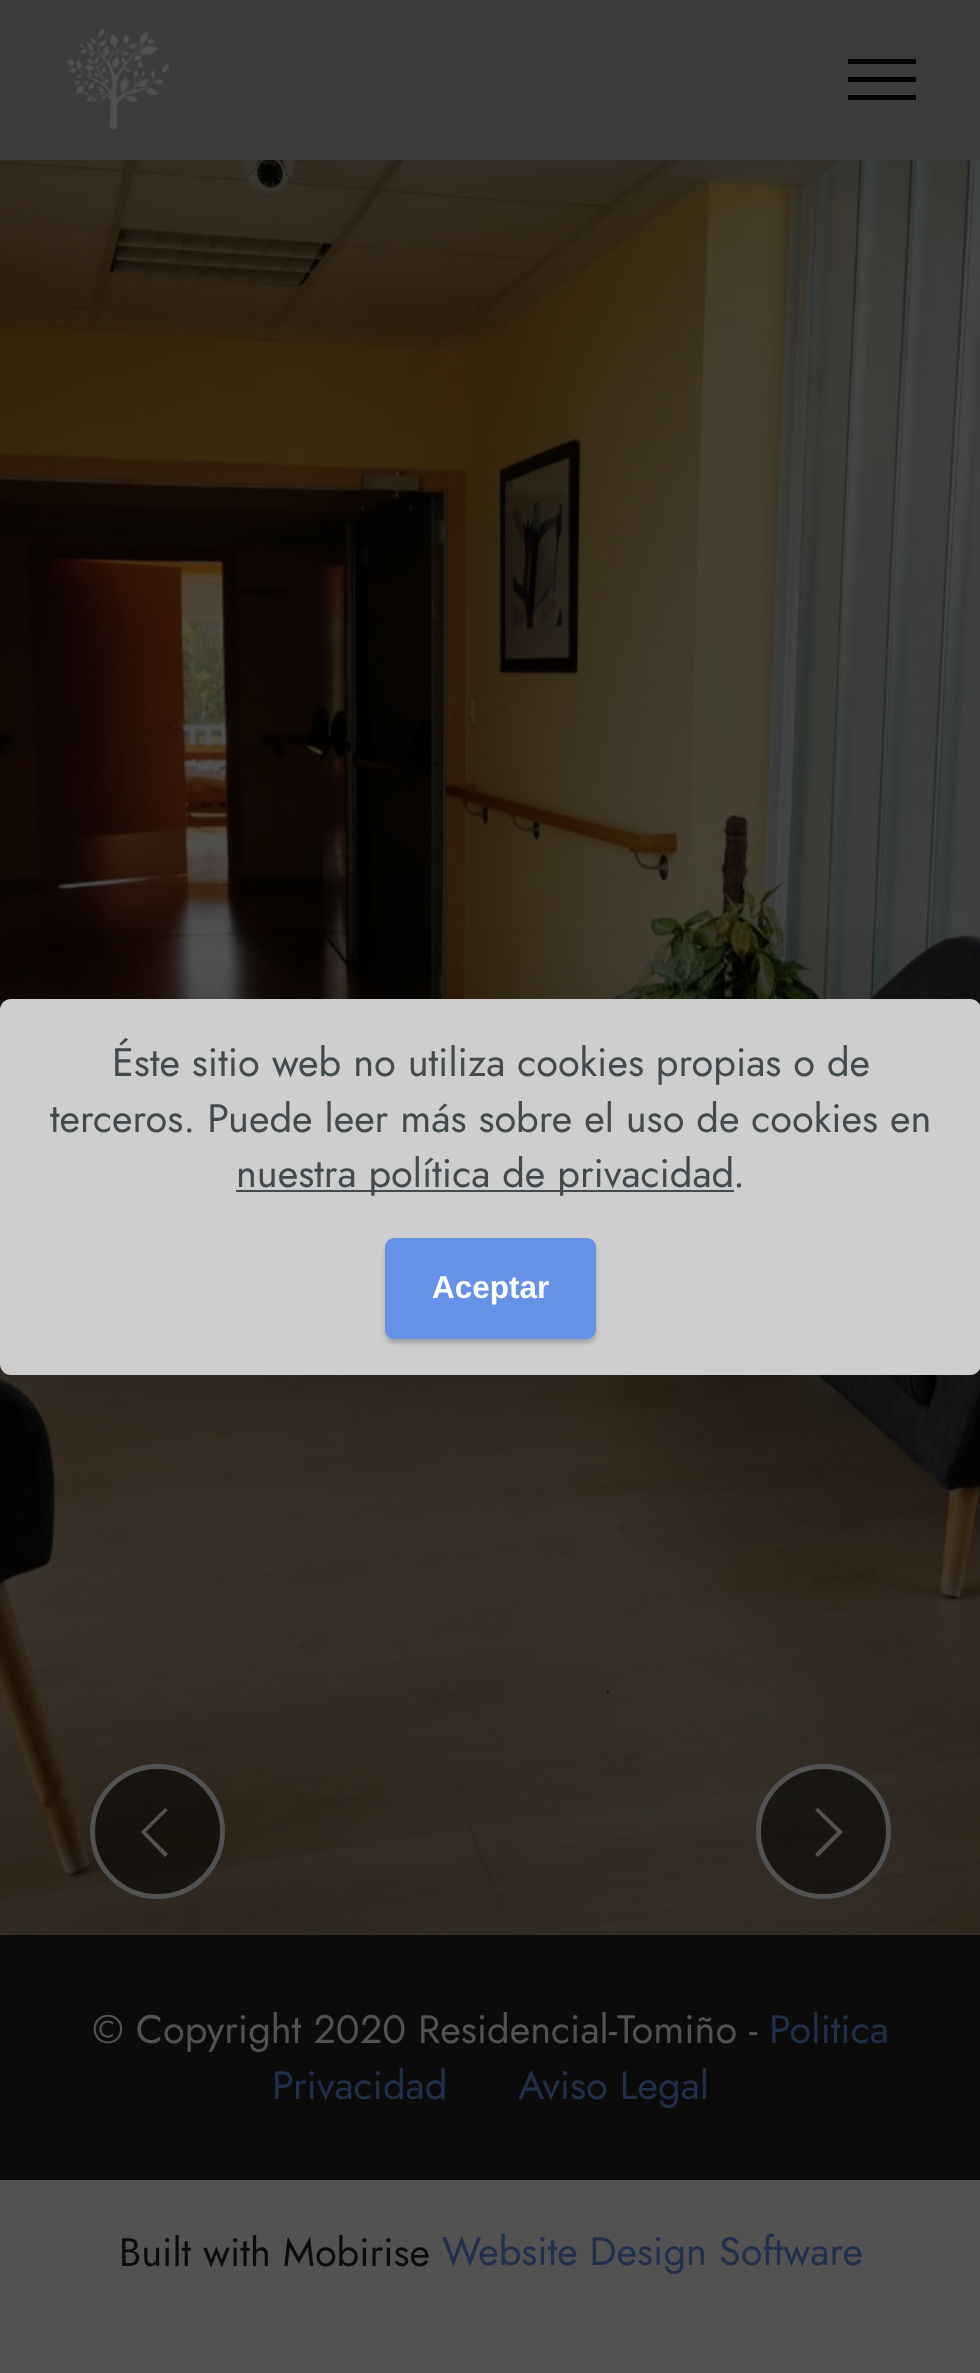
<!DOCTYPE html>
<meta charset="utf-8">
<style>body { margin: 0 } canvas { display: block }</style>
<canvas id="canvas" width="980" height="2373"></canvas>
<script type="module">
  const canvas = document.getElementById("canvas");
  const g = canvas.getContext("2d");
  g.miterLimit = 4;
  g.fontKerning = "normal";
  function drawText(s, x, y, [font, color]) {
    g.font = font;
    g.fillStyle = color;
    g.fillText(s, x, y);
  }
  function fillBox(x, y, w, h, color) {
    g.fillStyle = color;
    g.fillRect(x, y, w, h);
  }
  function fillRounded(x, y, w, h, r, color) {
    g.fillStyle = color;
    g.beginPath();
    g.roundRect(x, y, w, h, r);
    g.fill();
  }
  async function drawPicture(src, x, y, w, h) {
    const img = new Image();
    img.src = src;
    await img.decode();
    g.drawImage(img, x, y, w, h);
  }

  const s1 = ["39.75px Jost", "#424A4D"];
  const s2 = ["bold 31.5px Liberation Sans", "#FFFFFF"];
  const s3 = ["39.75px Jost", "#525252"];
  const s4 = ["39.75px Jost", "#202F4A"];
  const s5 = ["39.75px Jost", "#0B0B0B"];

  fillBox(0, 0, 980, 2373, "#525252");
  fillBox(0, 0, 980, 160, "#3C3C3C");
  await drawPicture("pic1.png", 67, 28, 103, 102);
  fillBox(848, 59, 68, 5, "#000000");
  fillBox(848, 77, 68, 5, "#000000");
  fillBox(848, 95, 68, 5, "#000000");
  await drawPicture("pic2.png", 0, 160, 980, 1775);
  g.fillStyle = "rgba(0, 0, 0, 0.5)";
  g.beginPath();
  g.arc(157.5, 1831.5, 65, 0, Math.PI * 2);
  g.fill();
  g.strokeStyle = "#525252";
  g.lineWidth = 5;
  g.stroke();
  g.fillStyle = "#525252";
  g.beginPath();
  g.moveTo(168, 1810);
  g.lineTo(146, 1832);
  g.lineTo(168, 1854);
  g.lineTo(165, 1857);
  g.lineTo(141, 1832);
  g.lineTo(165, 1808);
  g.closePath();
  g.fill();
  g.fillStyle = "rgba(0, 0, 0, 0.5)";
  g.beginPath();
  g.arc(823.5, 1831.5, 65, 0, Math.PI * 2);
  g.fill();
  g.stroke();
  g.fillStyle = "#525252";
  g.beginPath();
  g.moveTo(815, 1854);
  g.lineTo(837, 1832);
  g.lineTo(815, 1810);
  g.lineTo(818, 1808);
  g.lineTo(843, 1832);
  g.lineTo(818, 1857);
  g.closePath();
  g.fill();
  g.fillStyle = "rgba(0, 0, 0, 0.2)";
  g.filter = "blur(45px)";
  g.beginPath();
  g.roundRect(0, 1022, 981, 375, 11);
  g.fill();
  g.filter = "none";
  fillRounded(0, 999, 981, 376, 11, "#CECECE");
  drawText("Éste sitio web no utiliza cookies propias o de", 112, 1076, s1);
  drawText("terceros. Puede leer más sobre el uso de cookies en", 50, 1132, s1);
  fillBox(236, 1190, 498, 2, "#424A4D");
  drawText("nuestra política de privacidad", 236, 1187, s1);
  drawText(".", 733, 1187, s1);
  g.fillStyle = "rgba(0, 0, 0, 0.2)";
  g.filter = "blur(2px)";
  g.beginPath();
  g.roundRect(385, 1242, 211, 101, 9);
  g.fill();
  g.filter = "none";
  g.fillStyle = "#6592E6";
  g.beginPath();
  g.roundRect(387.5, 1240.5, 206, 96, 6.5);
  g.fill();
  g.strokeStyle = "#6592E6";
  g.stroke();
  drawText("Aceptar", 432, 1298, s2);
  fillBox(0, 1935, 980, 245, "#0B0B0B");
  drawText("© Copyright 2020 Residencial-Tomiño -", 92, 2043, s3);
  drawText("Politica", 769, 2043, s4);
  drawText("Privacidad", 272, 2099, s4);
  drawText("Aviso Legal", 518, 2099, s4);
  drawText("Built with Mobirise ‌", 119, 2266, s5);
  drawText("Website Design Software", 442, 2265, s4);
</script>
